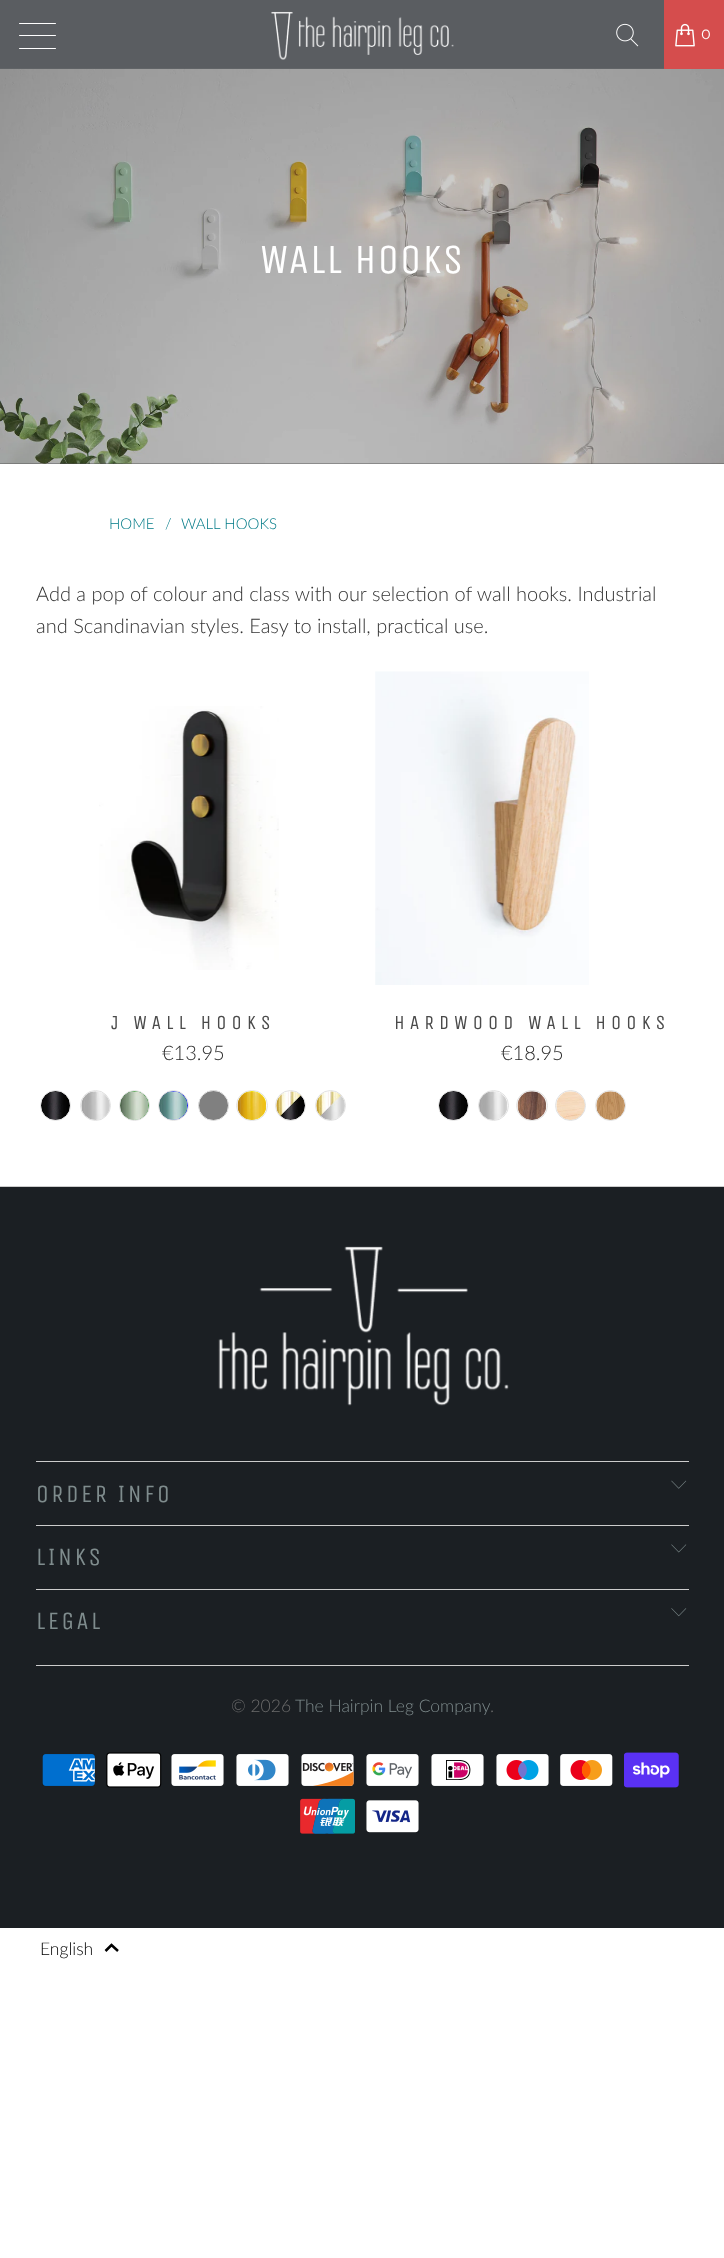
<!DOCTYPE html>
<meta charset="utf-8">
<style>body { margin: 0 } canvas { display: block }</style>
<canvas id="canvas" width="724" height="2258"></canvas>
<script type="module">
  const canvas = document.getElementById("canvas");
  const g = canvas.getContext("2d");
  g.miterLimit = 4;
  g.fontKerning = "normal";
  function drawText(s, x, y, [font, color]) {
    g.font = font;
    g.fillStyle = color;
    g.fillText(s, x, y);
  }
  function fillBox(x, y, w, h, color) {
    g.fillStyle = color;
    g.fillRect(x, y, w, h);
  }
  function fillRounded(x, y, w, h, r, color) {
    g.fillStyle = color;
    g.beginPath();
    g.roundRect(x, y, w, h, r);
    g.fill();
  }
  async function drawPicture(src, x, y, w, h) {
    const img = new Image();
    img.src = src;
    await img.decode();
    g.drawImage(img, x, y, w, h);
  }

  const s1 = ["16px Raleway", "#FFFFFF"];
  const s2 = ["41.5px Unica One", "#FFFFFF"];
  const s3 = ["300 15px Lato", "#007A87"];
  const s4 = ["300 20px Lato", "#333333"];
  const s5 = ["20px Unica One", "#4A4A4A"];
  const s6 = ["300 20px Lato", "#292929"];
  const s7 = ["25px Unica One", "#7F8C8D"];
  const s8 = ["300 17.5px Lato", "#6B6B6B"];
  const s9 = ["300 17.5px Lato", "#7F8C8D"];
  const s10 = ["300 17.5px Lato", "#000000"];

  fillBox(0, 0, 724, 2258, "#FFFFFF");
  fillBox(0, 0, 664, 69, "#5A5D61");
  fillRounded(19, 23, 37, 1, 0.5, "#FFFFFF");
  fillRounded(19, 35, 37, 1, 0.5, "#FFFFFF");
  fillRounded(19, 48, 37, 1, 0.5, "#FFFFFF");
  await drawPicture("pic1.png", 271, 11, 183, 49);
  await drawPicture("pic2.png", 616, 23, 23, 24);
  fillBox(0, 463, 724, 1, "#525252");
  await drawPicture("pic4.png", 0, 68, 724, 396);
  fillBox(664, 0, 60, 69, "#D54D4D");
  await drawPicture("pic3.png", 675, 23, 20, 24);
  g.letterSpacing = "1.25px";
  drawText("0", 701, 39, s1);
  drawText("WALL HOOKS", 260, 273, s2);
  g.letterSpacing = "0px";
  drawText("HOME", 109, 529, s3);
  drawText("/", 165, 529, s3);
  drawText("WALL HOOKS", 181, 529, s3);
  drawText("Add a pop of colour and class with our selection of wall hooks. Industrial", 36, 601, s4);
  drawText("and Scandinavian styles. Easy to install, practical use.", 36, 633, s4);
  await drawPicture("pic5.png", 99, 706, 180, 264);
  g.letterSpacing = "5px";
  drawText("J WALL HOOKS", 111, 1029, s5);
  g.letterSpacing = "0px";
  drawText("€13.95", 162, 1060, s6);
  g.fillStyle = "#000000";
  g.beginPath();
  g.arc(55.5, 1105.5, 14.5, 0, Math.PI * 2);
  g.fill();
  await drawPicture("pic6.png", 41, 1091, 29, 29);
  g.beginPath();
  g.arc(55.5, 1105.5, 15, 0, Math.PI * 2);
  g.strokeStyle = "#E2E2E2";
  g.stroke();
  await drawPicture("pic7.png", 81, 1091, 29, 29);
  g.beginPath();
  g.arc(95.5, 1105.5, 15, 0, Math.PI * 2);
  g.stroke();
  g.fillStyle = "#008000";
  g.beginPath();
  g.arc(134.5, 1105.5, 14.5, 0, Math.PI * 2);
  g.fill();
  await drawPicture("pic8.png", 120, 1091, 29, 29);
  g.beginPath();
  g.arc(134.5, 1105.5, 15, 0, Math.PI * 2);
  g.stroke();
  g.fillStyle = "#0000FF";
  g.beginPath();
  g.arc(173.5, 1105.5, 14.5, 0, Math.PI * 2);
  g.fill();
  await drawPicture("pic9.png", 158, 1091, 30, 29);
  g.beginPath();
  g.arc(173.5, 1105.5, 15, 0, Math.PI * 2);
  g.stroke();
  g.fillStyle = "#808080";
  g.beginPath();
  g.arc(213.5, 1105.5, 15, 0, Math.PI * 2);
  g.fill();
  g.stroke();
  fillRounded(238, 1091, 28, 29, 14, "#FFFF00");
  await drawPicture("pic10.png", 237, 1091, 30, 29);
  g.beginPath();
  g.roundRect(236.5, 1090.5, 31, 30, 15);
  g.stroke();
  await drawPicture("pic11.png", 276, 1091, 29, 29);
  g.beginPath();
  g.arc(290.5, 1105.5, 15, 0, Math.PI * 2);
  g.stroke();
  await drawPicture("pic12.png", 316, 1091, 29, 29);
  g.beginPath();
  g.arc(330.5, 1105.5, 15, 0, Math.PI * 2);
  g.stroke();
  await drawPicture("pic13.png", 375, 671, 214, 314);
  g.letterSpacing = "5px";
  drawText("HARDWOOD WALL HOOKS", 394, 1029, s5);
  g.letterSpacing = "0px";
  drawText("€18.95", 501, 1060, s6);
  g.fillStyle = "#000000";
  g.beginPath();
  g.arc(453.5, 1105.5, 14.5, 0, Math.PI * 2);
  g.fill();
  await drawPicture("pic14.png", 438, 1091, 30, 29);
  g.beginPath();
  g.arc(453.5, 1105.5, 15, 0, Math.PI * 2);
  g.stroke();
  await drawPicture("pic15.png", 478, 1091, 30, 29);
  g.beginPath();
  g.arc(493.5, 1105.5, 15, 0, Math.PI * 2);
  g.stroke();
  await drawPicture("pic16.png", 517, 1091, 30, 29);
  g.beginPath();
  g.roundRect(516.5, 1090.5, 31, 30, 15);
  g.stroke();
  await drawPicture("pic17.png", 556, 1091, 29, 29);
  g.beginPath();
  g.arc(570.5, 1105.5, 15, 0, Math.PI * 2);
  g.stroke();
  await drawPicture("pic18.png", 596, 1091, 29, 29);
  g.beginPath();
  g.arc(610.5, 1105.5, 15, 0, Math.PI * 2);
  g.stroke();
  fillBox(0, 1187, 724, 741, "#1B1F23");
  fillBox(0, 1186, 724, 1, "#CCCCCC");
  await drawPicture("pic19.png", 218, 1246, 291, 160);
  fillBox(36, 1461, 653, 1, "#CCCCCC");
  g.letterSpacing = "2.5px";
  drawText("ORDER INFO", 36, 1502, s7);
  await drawPicture("pic20.png", 671, 1480, 16, 9);
  fillBox(36, 1525, 653, 1, "#CCCCCC");
  drawText("LINKS", 36, 1565, s7);
  await drawPicture("pic21.png", 671, 1544, 16, 9);
  fillBox(36, 1589, 653, 1, "#CCCCCC");
  drawText("LEGAL", 36, 1629, s7);
  await drawPicture("pic22.png", 671, 1608, 16, 9);
  fillBox(36, 1665, 653, 1, "#CCCCCC");
  g.letterSpacing = "0px";
  drawText("© 2026", 231, 1712, s8);
  drawText("The Hairpin Leg Company", 295, 1712, s9);
  drawText(".", 490, 1712, s8);
  await drawPicture("pic23.png", 42, 1754, 53, 32);
  await drawPicture("pic24.png", 106, 1752, 56, 36);
  await drawPicture("pic25.png", 171, 1754, 53, 32);
  await drawPicture("pic26.png", 236, 1754, 53, 32);
  await drawPicture("pic27.png", 301, 1754, 53, 32);
  await drawPicture("pic28.png", 366, 1754, 53, 32);
  await drawPicture("pic29.png", 431, 1754, 53, 32);
  await drawPicture("pic30.png", 496, 1754, 53, 32);
  await drawPicture("pic31.png", 560, 1754, 53, 32);
  await drawPicture("pic32.png", 624, 1752, 55, 36);
  await drawPicture("pic33.png", 300, 1798, 55, 36);
  await drawPicture("pic34.png", 366, 1800, 53, 33);
  drawText("English", 40, 1955, s10);
  g.beginPath();
  g.moveTo(118, 1951);
  g.lineTo(111.5, 1945);
  g.lineTo(105.5, 1951);
  g.strokeStyle = "#000000";
  g.lineWidth = 2.5;
  g.stroke();
</script>
